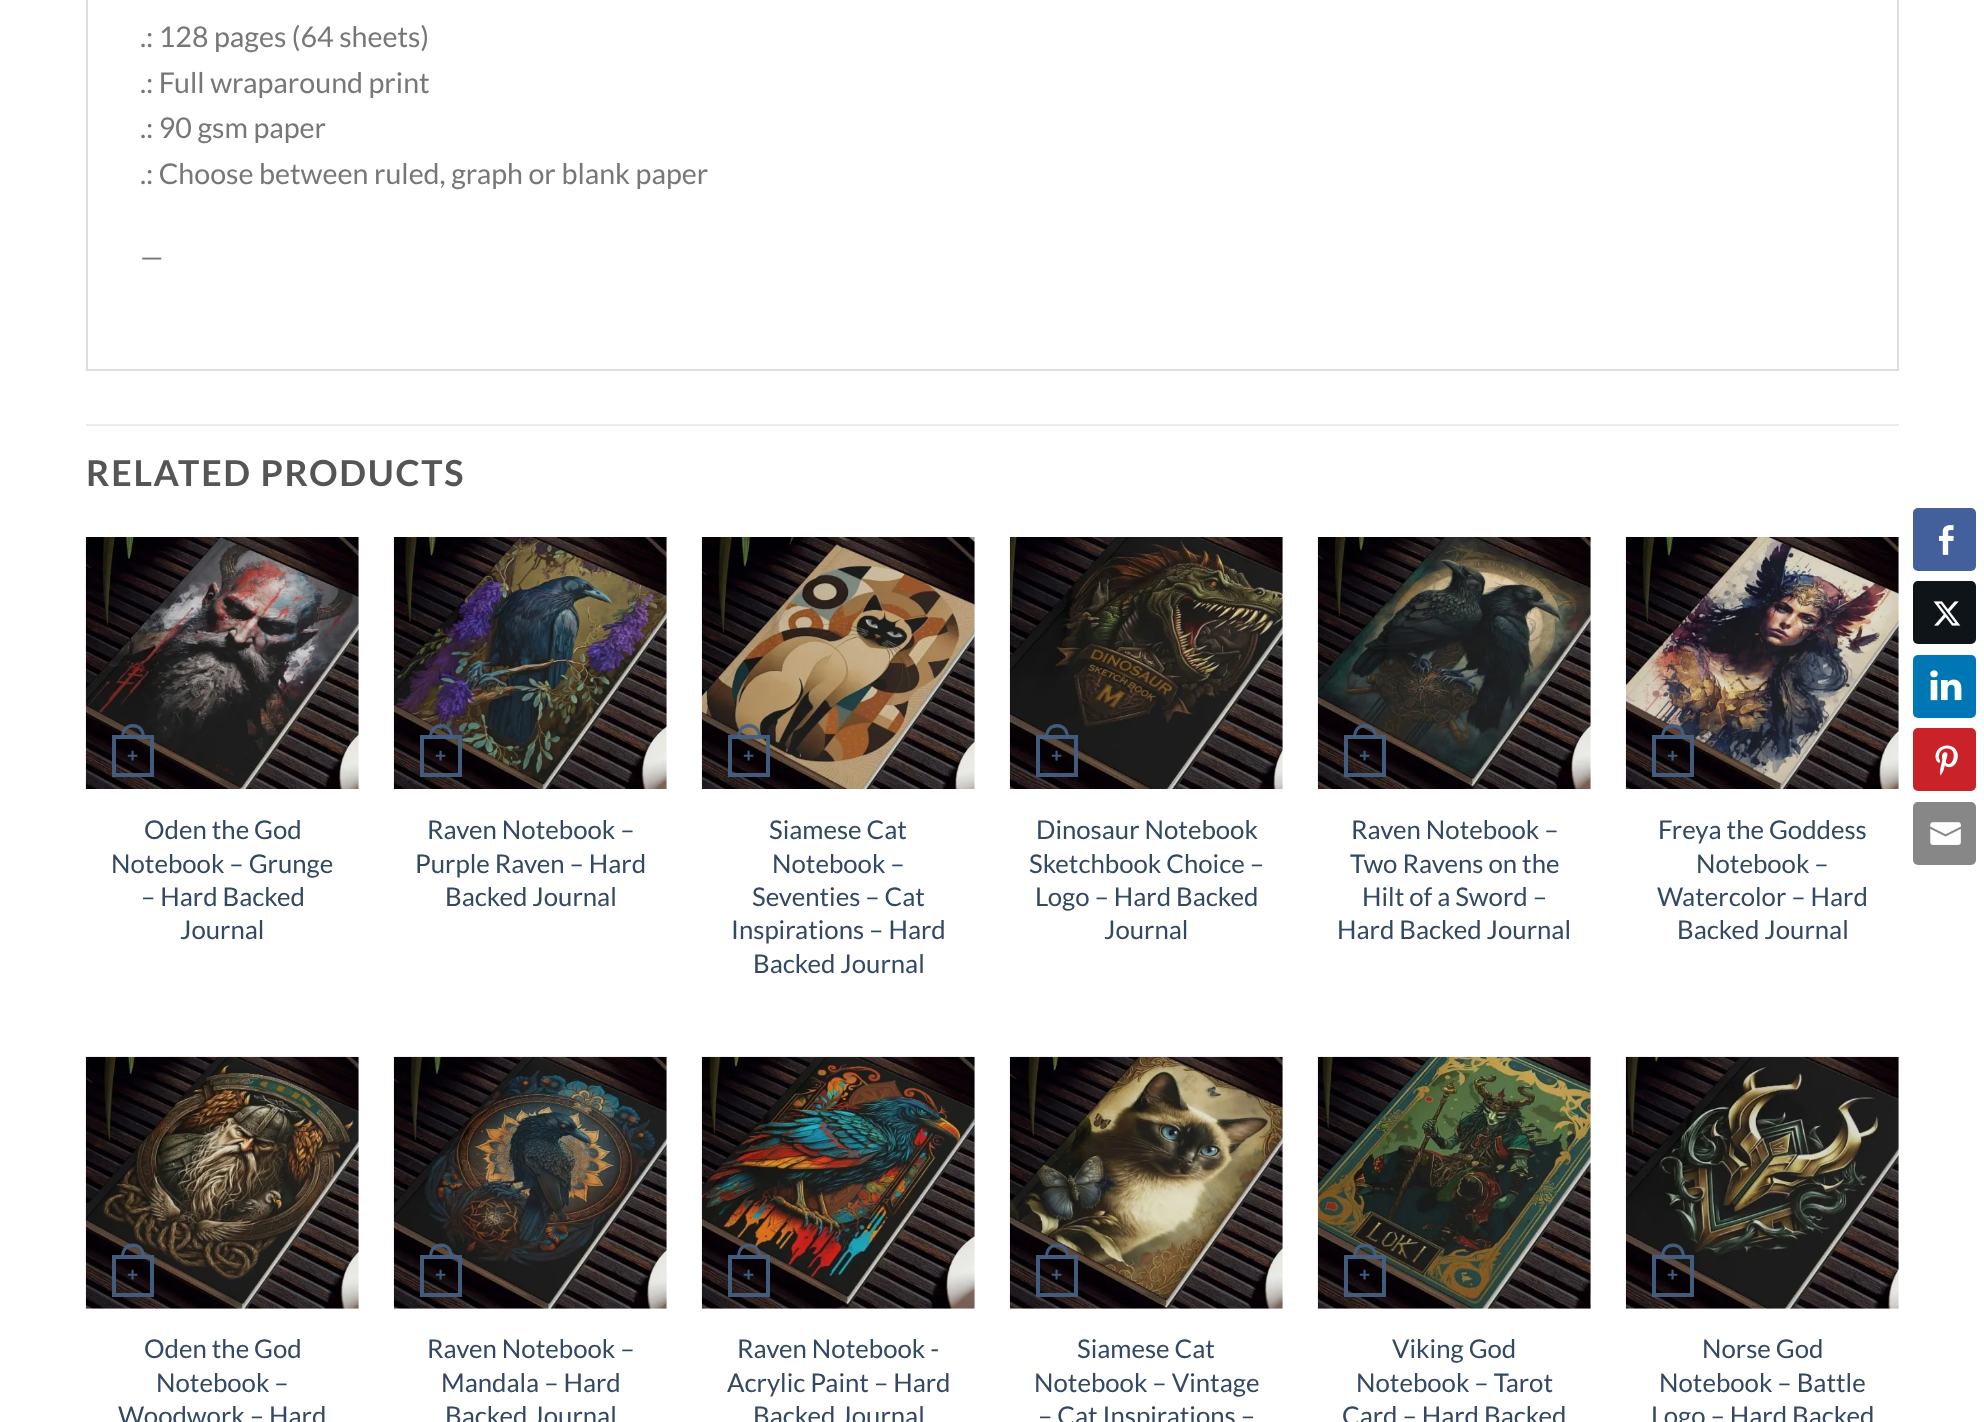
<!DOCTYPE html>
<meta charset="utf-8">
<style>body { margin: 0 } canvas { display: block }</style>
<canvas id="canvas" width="1984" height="1422"></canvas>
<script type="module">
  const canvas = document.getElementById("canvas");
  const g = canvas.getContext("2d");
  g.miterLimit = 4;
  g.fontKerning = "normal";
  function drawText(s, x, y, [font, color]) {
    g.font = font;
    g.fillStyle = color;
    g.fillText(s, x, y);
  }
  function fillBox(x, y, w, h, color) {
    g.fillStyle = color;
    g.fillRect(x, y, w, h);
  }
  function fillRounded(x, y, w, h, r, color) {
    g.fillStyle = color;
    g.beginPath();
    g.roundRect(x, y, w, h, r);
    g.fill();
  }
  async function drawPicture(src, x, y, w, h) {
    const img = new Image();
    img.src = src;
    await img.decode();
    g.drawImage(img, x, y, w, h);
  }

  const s1 = ["28.6px Lato", "#777777"];
  const s2 = ["bold 35.75px Lato", "#555555"];
  const s3 = ["bold 19px Liberation Sans", "#415B7E"];
  const s4 = ["25.75px Lato", "#334862"];

  fillBox(0, 0, 1984, 1422, "#FFFFFF");
  g.strokeStyle = "#DDDDDD";
  g.lineWidth = 2;
  g.strokeRect(87, -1, 1811, 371);
  drawText(".: 128 pages (64 sheets)", 140, 47, s1);
  drawText(".: Full wraparound print", 140, 93, s1);
  drawText(".: 90 gsm paper", 140, 138, s1);
  drawText(".: Choose between ruled, graph or blank paper", 140, 184, s1);
  drawText("—", 140, 267, s1);
  fillBox(86, 424, 1813, 2, "#ECECEC");
  g.letterSpacing = "1.75px";
  drawText("RELATED PRODUCTS", 86, 486, s2);
  await drawPicture("pic1.png", 85, 537, 274, 252);
  g.strokeStyle = "rgba(68, 96, 132, 0.95)";
  g.lineWidth = 4;
  g.strokeRect(114, 737, 38, 38);
  g.fillStyle = "rgba(68, 96, 132, 0.95)";
  g.beginPath();
  g.moveTo(133, 724);
  g.bezierCurveTo(141.5, 724, 145, 730.5, 145, 738);
  g.lineTo(121, 738);
  g.bezierCurveTo(121, 730.5, 124.5, 724, 133, 724);
  g.closePath();
  g.moveTo(133, 727.5);
  g.bezierCurveTo(139.5, 727.5, 142, 732.5, 142, 738);
  g.lineTo(124, 738);
  g.bezierCurveTo(124, 732.5, 126.5, 727.5, 133, 727.5);
  g.closePath();
  g.fill("evenodd");
  g.letterSpacing = "0px";
  drawText("+", 127, 762, s3);
  drawText("Oden the God", 144, 839, s4);
  drawText("Notebook – Grunge", 111, 873, s4);
  drawText("– Hard Backed", 141, 906, s4);
  drawText("Journal", 180, 939, s4);
  await drawPicture("pic2.png", 393, 537, 274, 252);
  g.strokeRect(422, 737, 38, 38);
  g.fillStyle = "rgba(68, 96, 132, 0.95)";
  g.beginPath();
  g.moveTo(441, 724);
  g.bezierCurveTo(449.5, 724, 453, 730.5, 453, 738);
  g.lineTo(429, 738);
  g.bezierCurveTo(429, 730.5, 432.5, 724, 441, 724);
  g.closePath();
  g.moveTo(441, 727.5);
  g.bezierCurveTo(447.5, 727.5, 450, 732.5, 450, 738);
  g.lineTo(432, 738);
  g.bezierCurveTo(432, 732.5, 434.5, 727.5, 441, 727.5);
  g.closePath();
  g.fill("evenodd");
  drawText("+", 435, 762, s3);
  drawText("Raven Notebook –", 427, 839, s4);
  drawText("Purple Raven – Hard", 415, 873, s4);
  drawText("Backed Journal", 445, 906, s4);
  await drawPicture("pic3.png", 701, 537, 274, 252);
  g.strokeRect(730, 737, 38, 38);
  g.fillStyle = "rgba(68, 96, 132, 0.95)";
  g.beginPath();
  g.moveTo(749, 724);
  g.bezierCurveTo(757.5, 724, 761, 730.5, 761, 738);
  g.lineTo(737, 738);
  g.bezierCurveTo(737, 730.5, 740.5, 724, 749, 724);
  g.closePath();
  g.moveTo(749, 727.5);
  g.bezierCurveTo(755.5, 727.5, 758, 732.5, 758, 738);
  g.lineTo(740, 738);
  g.bezierCurveTo(740, 732.5, 742.5, 727.5, 749, 727.5);
  g.closePath();
  g.fill("evenodd");
  drawText("+", 743, 762, s3);
  drawText("Siamese Cat", 769, 839, s4);
  drawText("Notebook –", 772, 873, s4);
  drawText("Seventies – Cat", 752, 906, s4);
  drawText("Inspirations – Hard", 731, 939, s4);
  drawText("Backed Journal", 753, 973, s4);
  await drawPicture("pic4.png", 1009, 537, 274, 252);
  g.strokeRect(1038, 737, 38, 38);
  g.fillStyle = "rgba(68, 96, 132, 0.95)";
  g.beginPath();
  g.moveTo(1057, 724);
  g.bezierCurveTo(1065.5, 724, 1069, 730.5, 1069, 738);
  g.lineTo(1045, 738);
  g.bezierCurveTo(1045, 730.5, 1048.5, 724, 1057, 724);
  g.closePath();
  g.moveTo(1057, 727.5);
  g.bezierCurveTo(1063.5, 727.5, 1066, 732.5, 1066, 738);
  g.lineTo(1048, 738);
  g.bezierCurveTo(1048, 732.5, 1050.5, 727.5, 1057, 727.5);
  g.closePath();
  g.fill("evenodd");
  drawText("+", 1051, 762, s3);
  drawText("Dinosaur Notebook", 1036, 839, s4);
  drawText("Sketchbook Choice –", 1029, 873, s4);
  drawText("Logo – Hard Backed", 1035, 906, s4);
  drawText("Journal", 1104, 939, s4);
  await drawPicture("pic5.png", 1317, 537, 274, 252);
  g.strokeRect(1346, 737, 38, 38);
  g.fillStyle = "rgba(68, 96, 132, 0.95)";
  g.beginPath();
  g.moveTo(1365, 724);
  g.bezierCurveTo(1373.5, 724, 1377, 730.5, 1377, 738);
  g.lineTo(1353, 738);
  g.bezierCurveTo(1353, 730.5, 1356.5, 724, 1365, 724);
  g.closePath();
  g.moveTo(1365, 727.5);
  g.bezierCurveTo(1371.5, 727.5, 1374, 732.5, 1374, 738);
  g.lineTo(1356, 738);
  g.bezierCurveTo(1356, 732.5, 1358.5, 727.5, 1365, 727.5);
  g.closePath();
  g.fill("evenodd");
  drawText("+", 1359, 762, s3);
  drawText("Raven Notebook –", 1351, 839, s4);
  drawText("Two Ravens on the", 1350, 873, s4);
  drawText("Hilt of a Sword –", 1362, 906, s4);
  drawText("Hard Backed Journal", 1337, 939, s4);
  await drawPicture("pic6.png", 1625, 537, 274, 252);
  g.strokeRect(1654, 737, 38, 38);
  g.fillStyle = "rgba(68, 96, 132, 0.95)";
  g.beginPath();
  g.moveTo(1673, 724);
  g.bezierCurveTo(1681.5, 724, 1685, 730.5, 1685, 738);
  g.lineTo(1661, 738);
  g.bezierCurveTo(1661, 730.5, 1664.5, 724, 1673, 724);
  g.closePath();
  g.moveTo(1673, 727.5);
  g.bezierCurveTo(1679.5, 727.5, 1682, 732.5, 1682, 738);
  g.lineTo(1664, 738);
  g.bezierCurveTo(1664, 732.5, 1666.5, 727.5, 1673, 727.5);
  g.closePath();
  g.fill("evenodd");
  drawText("+", 1667, 762, s3);
  drawText("Freya the Goddess", 1658, 839, s4);
  drawText("Notebook –", 1696, 873, s4);
  drawText("Watercolor – Hard", 1657, 906, s4);
  drawText("Backed Journal", 1677, 939, s4);
  await drawPicture("pic7.png", 85, 1056, 274, 253);
  g.strokeRect(114, 1257, 38, 38);
  g.fillStyle = "rgba(68, 96, 132, 0.95)";
  g.beginPath();
  g.moveTo(133, 1243.5);
  g.bezierCurveTo(141.5, 1243.5, 145, 1250, 145, 1257.5);
  g.lineTo(121, 1257.5);
  g.bezierCurveTo(121, 1250, 124.5, 1243.5, 133, 1243.5);
  g.closePath();
  g.moveTo(133, 1247);
  g.bezierCurveTo(139.5, 1247, 142, 1252, 142, 1257.5);
  g.lineTo(124, 1257.5);
  g.bezierCurveTo(124, 1252, 126.5, 1247, 133, 1247);
  g.closePath();
  g.fill("evenodd");
  drawText("+", 127, 1281, s3);
  drawText("Oden the God", 144, 1358, s4);
  drawText("Notebook –", 156, 1392, s4);
  drawText("Woodwork – Hard", 118, 1425, s4);
  await drawPicture("pic8.png", 393, 1056, 274, 253);
  g.strokeRect(422, 1257, 38, 38);
  g.fillStyle = "rgba(68, 96, 132, 0.95)";
  g.beginPath();
  g.moveTo(441, 1243.5);
  g.bezierCurveTo(449.5, 1243.5, 453, 1250, 453, 1257.5);
  g.lineTo(429, 1257.5);
  g.bezierCurveTo(429, 1250, 432.5, 1243.5, 441, 1243.5);
  g.closePath();
  g.moveTo(441, 1247);
  g.bezierCurveTo(447.5, 1247, 450, 1252, 450, 1257.5);
  g.lineTo(432, 1257.5);
  g.bezierCurveTo(432, 1252, 434.5, 1247, 441, 1247);
  g.closePath();
  g.fill("evenodd");
  drawText("+", 435, 1281, s3);
  drawText("Raven Notebook –", 427, 1358, s4);
  drawText("Mandala – Hard", 441, 1392, s4);
  drawText("Backed Journal", 445, 1425, s4);
  await drawPicture("pic9.png", 701, 1056, 274, 253);
  g.strokeRect(730, 1257, 38, 38);
  g.fillStyle = "rgba(68, 96, 132, 0.95)";
  g.beginPath();
  g.moveTo(749, 1243.5);
  g.bezierCurveTo(757.5, 1243.5, 761, 1250, 761, 1257.5);
  g.lineTo(737, 1257.5);
  g.bezierCurveTo(737, 1250, 740.5, 1243.5, 749, 1243.5);
  g.closePath();
  g.moveTo(749, 1247);
  g.bezierCurveTo(755.5, 1247, 758, 1252, 758, 1257.5);
  g.lineTo(740, 1257.5);
  g.bezierCurveTo(740, 1252, 742.5, 1247, 749, 1247);
  g.closePath();
  g.fill("evenodd");
  drawText("+", 743, 1281, s3);
  drawText("Raven Notebook -", 737, 1358, s4);
  drawText("Acrylic Paint – Hard", 727, 1392, s4);
  drawText("Backed Journal", 753, 1425, s4);
  await drawPicture("pic10.png", 1009, 1056, 274, 253);
  g.strokeRect(1038, 1257, 38, 38);
  g.fillStyle = "rgba(68, 96, 132, 0.95)";
  g.beginPath();
  g.moveTo(1057, 1243.5);
  g.bezierCurveTo(1065.5, 1243.5, 1069, 1250, 1069, 1257.5);
  g.lineTo(1045, 1257.5);
  g.bezierCurveTo(1045, 1250, 1048.5, 1243.5, 1057, 1243.5);
  g.closePath();
  g.moveTo(1057, 1247);
  g.bezierCurveTo(1063.5, 1247, 1066, 1252, 1066, 1257.5);
  g.lineTo(1048, 1257.5);
  g.bezierCurveTo(1048, 1252, 1050.5, 1247, 1057, 1247);
  g.closePath();
  g.fill("evenodd");
  drawText("+", 1051, 1281, s3);
  drawText("Siamese Cat", 1077, 1358, s4);
  drawText("Notebook – Vintage", 1034, 1392, s4);
  drawText("– Cat Inspirations –", 1038, 1425, s4);
  await drawPicture("pic11.png", 1317, 1056, 274, 253);
  g.strokeRect(1346, 1257, 38, 38);
  g.fillStyle = "rgba(68, 96, 132, 0.95)";
  g.beginPath();
  g.moveTo(1365, 1243.5);
  g.bezierCurveTo(1373.5, 1243.5, 1377, 1250, 1377, 1257.5);
  g.lineTo(1353, 1257.5);
  g.bezierCurveTo(1353, 1250, 1356.5, 1243.5, 1365, 1243.5);
  g.closePath();
  g.moveTo(1365, 1247);
  g.bezierCurveTo(1371.5, 1247, 1374, 1252, 1374, 1257.5);
  g.lineTo(1356, 1257.5);
  g.bezierCurveTo(1356, 1252, 1358.5, 1247, 1365, 1247);
  g.closePath();
  g.fill("evenodd");
  drawText("+", 1359, 1281, s3);
  drawText("Viking God", 1392, 1358, s4);
  drawText("Notebook – Tarot", 1356, 1392, s4);
  drawText("Card – Hard Backed", 1342, 1425, s4);
  await drawPicture("pic12.png", 1625, 1056, 274, 253);
  g.strokeRect(1654, 1257, 38, 38);
  g.fillStyle = "rgba(68, 96, 132, 0.95)";
  g.beginPath();
  g.moveTo(1673, 1243.5);
  g.bezierCurveTo(1681.5, 1243.5, 1685, 1250, 1685, 1257.5);
  g.lineTo(1661, 1257.5);
  g.bezierCurveTo(1661, 1250, 1664.5, 1243.5, 1673, 1243.5);
  g.closePath();
  g.moveTo(1673, 1247);
  g.bezierCurveTo(1679.5, 1247, 1682, 1252, 1682, 1257.5);
  g.lineTo(1664, 1257.5);
  g.bezierCurveTo(1664, 1252, 1666.5, 1247, 1673, 1247);
  g.closePath();
  g.fill("evenodd");
  drawText("+", 1667, 1281, s3);
  drawText("Norse God", 1702, 1358, s4);
  drawText("Notebook – Battle", 1659, 1392, s4);
  drawText("Logo – Hard Backed", 1651, 1425, s4);
  fillRounded(1913, 508, 63, 63, 5, "#43609C");
  await drawPicture("pic13.png", 1939, 525, 15, 30);
  fillRounded(1913, 581, 63, 63, 5, "#0F1419");
  await drawPicture("pic14.png", 1933, 601, 28, 25);
  fillRounded(1913, 655, 63, 63, 5, "#0077B5");
  await drawPicture("pic15.png", 1930, 670, 32, 31);
  fillRounded(1913, 728, 63, 63, 5, "#C92228");
  await drawPicture("pic16.png", 1935, 745, 23, 31);
  fillRounded(1913, 802, 63, 63, 5, "#878787");
  await drawPicture("pic17.png", 1930, 822, 31, 23);
</script>
